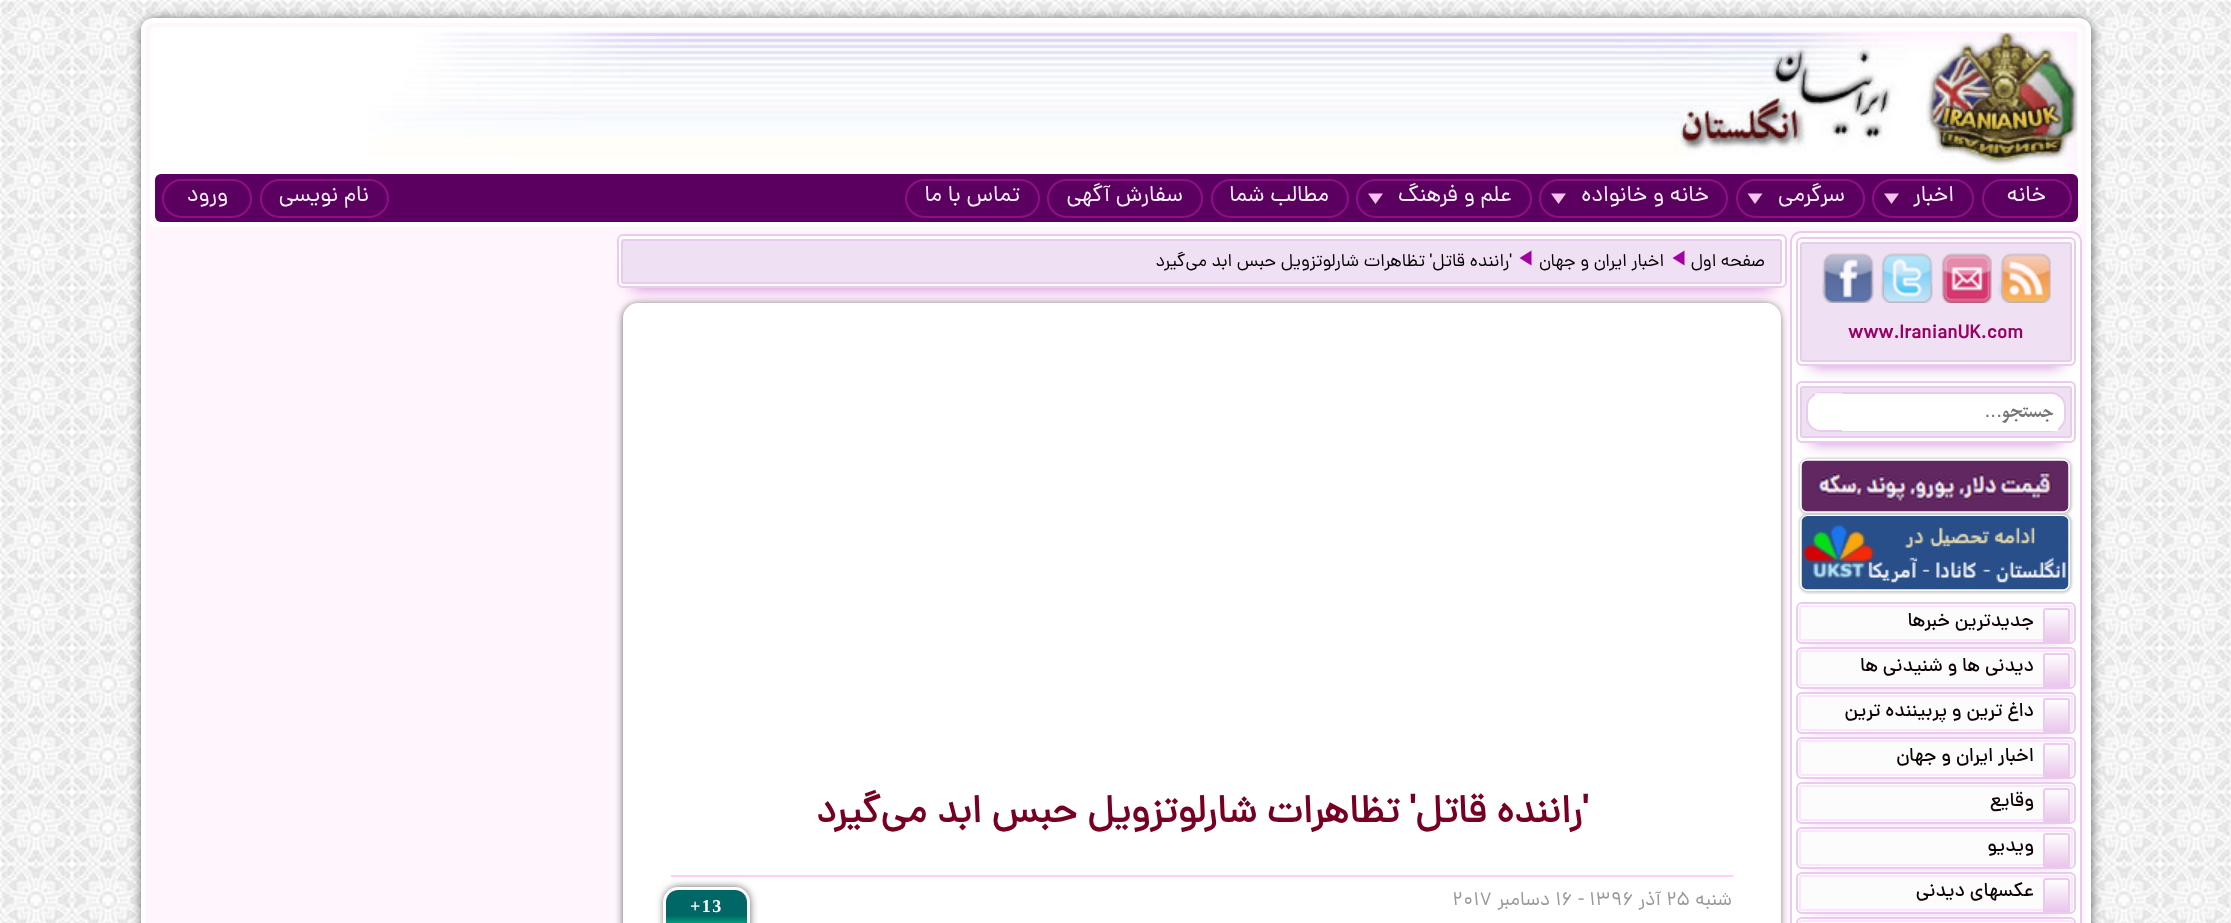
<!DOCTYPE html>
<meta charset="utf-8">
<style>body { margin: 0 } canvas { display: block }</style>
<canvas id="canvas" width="2231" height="923"></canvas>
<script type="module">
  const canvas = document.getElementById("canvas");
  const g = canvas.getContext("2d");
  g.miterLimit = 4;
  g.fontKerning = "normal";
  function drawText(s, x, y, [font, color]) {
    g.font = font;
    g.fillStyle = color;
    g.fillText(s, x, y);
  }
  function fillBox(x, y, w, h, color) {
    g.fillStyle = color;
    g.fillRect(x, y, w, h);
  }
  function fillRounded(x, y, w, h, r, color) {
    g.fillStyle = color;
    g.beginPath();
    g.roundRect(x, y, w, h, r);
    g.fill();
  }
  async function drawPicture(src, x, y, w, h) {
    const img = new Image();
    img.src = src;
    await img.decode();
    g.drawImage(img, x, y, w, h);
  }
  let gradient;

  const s1 = ["22.5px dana", "#F7F2F7"];
  const s2 = ["bold 19.5px dana", "#990066"];
  const s3 = ["bold 21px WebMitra", "#757575"];
  const s4 = ["21px Liberation Sans", "#757575"];
  const s5 = ["500 19.5px dana", "#0D0101"];
  const s6 = ["18px dana", "#000000"];
  const s7 = ["bold 39px dana", "#770022"];
  const s8 = ["19.5px dana", "#999999"];
  const s9 = ["bold 18px Liberation Serif", "#FFFFFF"];

  fillBox(0, 0, 2231, 923, "#FFFFFF");
  await drawPicture("pic1.png", 0, 0, 2231, 923);
  g.fillStyle = "rgba(0, 0, 0, 0.75)";
  g.filter = "blur(6px)";
  g.beginPath();
  g.roundRect(143, 20, 1947, 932, 11);
  g.fill();
  g.filter = "none";
  g.fillStyle = "#FFF5FD";
  g.beginPath();
  g.roundRect(143.5, 20.5, 1945, 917, 9.5);
  g.fill();
  g.strokeStyle = "#FFFFFF";
  g.lineWidth = 5;
  g.stroke();
  fillRounded(150, 27, 1932, 200, 6, "#FFFFFF");
  await drawPicture("pic2.png", 367, 31, 1711, 142);
  fillRounded(155, 174, 1923, 48, 6, "#5B0061");
  g.beginPath();
  g.roundRect(1983, 180, 88, 37, 18.5);
  g.strokeStyle = "#8F0F89";
  g.lineWidth = 2;
  g.stroke();
  g.direction = "rtl";
  drawText("خانه", 2046, 201, s1);
  g.beginPath();
  g.roundRect(1873, 180, 100, 37, 18.5);
  g.stroke();
  drawText("اخبار", 1954, 201, s1);
  g.fillStyle = "#F7C2EE";
  g.beginPath();
  g.moveTo(1884, 193.5);
  g.lineTo(1899, 193.5);
  g.lineTo(1891.5, 204);
  g.closePath();
  g.fill();
  g.beginPath();
  g.roundRect(1737, 180, 127, 37, 18.5);
  g.stroke();
  drawText("سرگرمی", 1845, 201, s1);
  g.fillStyle = "#F7C2EE";
  g.beginPath();
  g.moveTo(1747.5, 193.5);
  g.lineTo(1762.5, 193.5);
  g.lineTo(1755, 204);
  g.closePath();
  g.fill();
  g.beginPath();
  g.roundRect(1540, 180, 187, 37, 18.5);
  g.stroke();
  drawText("خانه و خانواده", 1709, 201, s1);
  g.fillStyle = "#F7C2EE";
  g.beginPath();
  g.moveTo(1551, 193.5);
  g.lineTo(1566, 193.5);
  g.lineTo(1558.5, 204);
  g.closePath();
  g.fill();
  g.beginPath();
  g.roundRect(1357, 180, 174, 37, 18.5);
  g.stroke();
  drawText("علم و فرهنگ", 1512, 201, s1);
  g.fillStyle = "#F7C2EE";
  g.beginPath();
  g.moveTo(1368, 193.5);
  g.lineTo(1383, 193.5);
  g.lineTo(1375.5, 204);
  g.closePath();
  g.fill();
  g.beginPath();
  g.roundRect(1212, 180, 136, 37, 18.5);
  g.stroke();
  drawText("مطالب شما", 1329, 201, s1);
  g.beginPath();
  g.roundRect(1048, 180, 154, 37, 18.5);
  g.stroke();
  drawText("سفارش آگهی", 1183, 201, s1);
  g.beginPath();
  g.roundRect(906, 180, 133, 37, 18.5);
  g.stroke();
  drawText("تماس با ما", 1020, 201, s1);
  g.beginPath();
  g.roundRect(261, 180, 127, 37, 18.5);
  g.stroke();
  drawText("نام نویسی", 369, 201, s1);
  g.beginPath();
  g.roundRect(163, 180, 88, 37, 18.5);
  g.stroke();
  drawText("ورود", 228, 201, s1);
  g.fillStyle = "rgba(162, 5, 172, 0.5)";
  g.filter = "blur(7.5px)";
  g.beginPath();
  g.rect(632, 264, 1140, 24);
  g.fill();
  g.filter = "none";
  g.fillStyle = "rgba(0, 0, 0, 0.75)";
  g.filter = "blur(4px)";
  g.beginPath();
  g.roundRect(624, 305, 1155, 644, 14);
  g.fill();
  g.filter = "none";
  g.fillStyle = "#FFFFFF";
  g.beginPath();
  g.roundRect(1791, 232, 290, 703, 10);
  g.fill();
  g.strokeStyle = "#EBCBED";
  g.stroke();
  g.save();
  g.beginPath();
  g.rect(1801, 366, 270, 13);
  g.clip();
  g.fillStyle = "rgba(162, 5, 172, 0.5)";
  g.filter = "blur(7.5px)";
  g.beginPath();
  g.rect(1811, 267, 250, 99);
  g.fill();
  g.filter = "none";
  g.restore();
  g.beginPath();
  g.roundRect(1797, 238, 278, 127, 5);
  g.stroke();
  g.fillStyle = "#F0E0F3";
  g.beginPath();
  g.roundRect(1801, 243, 270, 118, 2);
  g.fill();
  g.stroke();
  await drawPicture("pic3.png", 1998, 253, 53, 50);
  await drawPicture("pic4.png", 1941, 253, 51, 50);
  await drawPicture("pic5.png", 1881, 253, 52, 50);
  await drawPicture("pic6.png", 1822, 253, 52, 50);
  g.direction = "ltr";
  drawText("www.IranianUK.com", 1848, 338, s2);
  g.fillStyle = "rgba(162, 5, 172, 0.5)";
  g.filter = "blur(7.5px)";
  g.beginPath();
  g.rect(1811, 411, 250, 32);
  g.fill();
  g.filter = "none";
  g.fillStyle = "#FFFFFF";
  g.beginPath();
  g.roundRect(1797, 382, 278, 60, 5);
  g.fill();
  g.stroke();
  g.fillStyle = "#F0E0F3";
  g.beginPath();
  g.roundRect(1801, 387, 270, 50, 2);
  g.fill();
  g.stroke();
  g.fillStyle = "#FFFFFF";
  g.beginPath();
  g.roundRect(1807, 393, 258, 38, 14);
  g.fill();
  g.stroke();
  fillBox(1815, 393, 27, 3, "rgba(255, 255, 255, 0.7)");
  fillBox(1842, 428, 216, 3, "#FFFFFF");
  g.direction = "rtl";
  drawText("جستجو", 2054, 417, s3);
  drawText("...", 2002, 417, s4);
  g.fillStyle = "#CCCCCC";
  g.filter = "blur(1px)";
  g.beginPath();
  g.roundRect(1799, 458, 273, 57, 9);
  g.fill();
  g.filter = "none";
  g.beginPath();
  g.roundRect(1801, 460, 268, 52, 7);
  g.strokeStyle = "#FFFFFF";
  g.stroke();
  await drawPicture("pic7.png", 1801, 460, 268, 52);
  g.filter = "blur(1px)";
  g.beginPath();
  g.roundRect(1799, 513, 273, 80, 9);
  g.fill();
  g.filter = "none";
  g.beginPath();
  g.roundRect(1801, 516, 268, 74, 7);
  g.stroke();
  await drawPicture("pic8.png", 1801, 516, 268, 74);
  g.fillStyle = "rgba(162, 5, 172, 0.5)";
  g.filter = "blur(7.5px)";
  g.beginPath();
  g.rect(1811, 626, 250, 12);
  g.fill();
  g.filter = "none";
  g.fillStyle = "#FFFFFF";
  g.beginPath();
  g.roundRect(1797, 603, 278, 40, 5);
  g.fill();
  g.strokeStyle = "#EBCBED";
  g.stroke();
  g.fillStyle = "#FCFCFC";
  g.beginPath();
  g.roundRect(1800, 606, 272, 34, 2);
  g.fill();
  g.strokeStyle = "#FDE3FF";
  g.stroke();
  g.save();
  g.beginPath();
  g.roundRect(2043, 608, 27, 36, 3);
  g.clip();
  gradient = g.createLinearGradient(2057, 609, 2057, 642);
  gradient.addColorStop(0, "#FFFFFF");
  gradient.addColorStop(1, "#E9C5EB");
  g.fillStyle = gradient;
  g.fillRect(2043, 609, 27, 33);
  g.restore();
  g.beginPath();
  g.roundRect(2044, 609, 25, 34, 2);
  g.strokeStyle = "#EBCBED";
  g.stroke();
  drawText("جدیدترین خبرها", 2034, 626, s5);
  g.fillStyle = "rgba(162, 5, 172, 0.5)";
  g.filter = "blur(7.5px)";
  g.beginPath();
  g.rect(1811, 671, 250, 12);
  g.fill();
  g.filter = "none";
  g.fillStyle = "#FFFFFF";
  g.beginPath();
  g.roundRect(1797, 648, 278, 40, 5);
  g.fill();
  g.stroke();
  g.fillStyle = "#FCFCFC";
  g.beginPath();
  g.roundRect(1800, 651, 272, 34, 2);
  g.fill();
  g.strokeStyle = "#FDE3FF";
  g.stroke();
  g.save();
  g.beginPath();
  g.roundRect(2043, 653, 27, 36, 3);
  g.clip();
  gradient = g.createLinearGradient(2057, 654, 2057, 687);
  gradient.addColorStop(0, "#FFFFFF");
  gradient.addColorStop(1, "#E9C5EB");
  g.fillStyle = gradient;
  g.fillRect(2043, 654, 27, 33);
  g.restore();
  g.beginPath();
  g.roundRect(2044, 654, 25, 34, 2);
  g.strokeStyle = "#EBCBED";
  g.stroke();
  drawText("دیدنی ها و شنیدنی ها", 2034, 671, s5);
  g.fillStyle = "rgba(162, 5, 172, 0.5)";
  g.filter = "blur(7.5px)";
  g.beginPath();
  g.rect(1811, 716, 250, 12);
  g.fill();
  g.filter = "none";
  g.fillStyle = "#FFFFFF";
  g.beginPath();
  g.roundRect(1797, 693, 278, 40, 5);
  g.fill();
  g.stroke();
  g.fillStyle = "#FCFCFC";
  g.beginPath();
  g.roundRect(1800, 696, 272, 34, 2);
  g.fill();
  g.strokeStyle = "#FDE3FF";
  g.stroke();
  g.save();
  g.beginPath();
  g.roundRect(2043, 698, 27, 36, 3);
  g.clip();
  gradient = g.createLinearGradient(2057, 699, 2057, 732);
  gradient.addColorStop(0, "#FFFFFF");
  gradient.addColorStop(1, "#E9C5EB");
  g.fillStyle = gradient;
  g.fillRect(2043, 699, 27, 33);
  g.restore();
  g.beginPath();
  g.roundRect(2044, 699, 25, 34, 2);
  g.strokeStyle = "#EBCBED";
  g.stroke();
  drawText("داغ ترین و پربیننده ترین", 2034, 716, s5);
  g.fillStyle = "rgba(162, 5, 172, 0.5)";
  g.filter = "blur(7.5px)";
  g.beginPath();
  g.rect(1811, 761, 250, 12);
  g.fill();
  g.filter = "none";
  g.fillStyle = "#FFFFFF";
  g.beginPath();
  g.roundRect(1797, 738, 278, 40, 5);
  g.fill();
  g.stroke();
  g.fillStyle = "#FCFCFC";
  g.beginPath();
  g.roundRect(1800, 741, 272, 34, 2);
  g.fill();
  g.strokeStyle = "#FDE3FF";
  g.stroke();
  g.save();
  g.beginPath();
  g.roundRect(2043, 743, 27, 36, 3);
  g.clip();
  gradient = g.createLinearGradient(2057, 744, 2057, 777);
  gradient.addColorStop(0, "#FFFFFF");
  gradient.addColorStop(1, "#E9C5EB");
  g.fillStyle = gradient;
  g.fillRect(2043, 744, 27, 33);
  g.restore();
  g.beginPath();
  g.roundRect(2044, 744, 25, 34, 2);
  g.strokeStyle = "#EBCBED";
  g.stroke();
  drawText("اخبار ایران و جهان", 2034, 761, s5);
  g.fillStyle = "rgba(162, 5, 172, 0.5)";
  g.filter = "blur(7.5px)";
  g.beginPath();
  g.rect(1811, 806, 250, 12);
  g.fill();
  g.filter = "none";
  g.fillStyle = "#FFFFFF";
  g.beginPath();
  g.roundRect(1797, 783, 278, 40, 5);
  g.fill();
  g.stroke();
  g.fillStyle = "#FCFCFC";
  g.beginPath();
  g.roundRect(1800, 786, 272, 34, 2);
  g.fill();
  g.strokeStyle = "#FDE3FF";
  g.stroke();
  g.save();
  g.beginPath();
  g.roundRect(2043, 788, 27, 36, 3);
  g.clip();
  gradient = g.createLinearGradient(2057, 789, 2057, 822);
  gradient.addColorStop(0, "#FFFFFF");
  gradient.addColorStop(1, "#E9C5EB");
  g.fillStyle = gradient;
  g.fillRect(2043, 789, 27, 33);
  g.restore();
  g.beginPath();
  g.roundRect(2044, 789, 25, 34, 2);
  g.strokeStyle = "#EBCBED";
  g.stroke();
  drawText("وقایع", 2034, 806, s5);
  g.fillStyle = "rgba(162, 5, 172, 0.5)";
  g.filter = "blur(7.5px)";
  g.beginPath();
  g.rect(1811, 851, 250, 12);
  g.fill();
  g.filter = "none";
  g.fillStyle = "#FFFFFF";
  g.beginPath();
  g.roundRect(1797, 828, 278, 40, 5);
  g.fill();
  g.stroke();
  g.fillStyle = "#FCFCFC";
  g.beginPath();
  g.roundRect(1800, 831, 272, 34, 2);
  g.fill();
  g.strokeStyle = "#FDE3FF";
  g.stroke();
  g.save();
  g.beginPath();
  g.roundRect(2043, 833, 27, 36, 3);
  g.clip();
  gradient = g.createLinearGradient(2057, 834, 2057, 867);
  gradient.addColorStop(0, "#FFFFFF");
  gradient.addColorStop(1, "#E9C5EB");
  g.fillStyle = gradient;
  g.fillRect(2043, 834, 27, 33);
  g.restore();
  g.beginPath();
  g.roundRect(2044, 834, 25, 34, 2);
  g.strokeStyle = "#EBCBED";
  g.stroke();
  drawText("ویدیو", 2034, 851, s5);
  g.fillStyle = "rgba(162, 5, 172, 0.5)";
  g.filter = "blur(7.5px)";
  g.beginPath();
  g.rect(1811, 896, 250, 12);
  g.fill();
  g.filter = "none";
  g.fillStyle = "#FFFFFF";
  g.beginPath();
  g.roundRect(1797, 873, 278, 40, 5);
  g.fill();
  g.stroke();
  g.fillStyle = "#FCFCFC";
  g.beginPath();
  g.roundRect(1800, 876, 272, 34, 2);
  g.fill();
  g.strokeStyle = "#FDE3FF";
  g.stroke();
  g.save();
  g.beginPath();
  g.roundRect(2043, 878, 27, 36, 3);
  g.clip();
  gradient = g.createLinearGradient(2057, 879, 2057, 912);
  gradient.addColorStop(0, "#FFFFFF");
  gradient.addColorStop(1, "#E9C5EB");
  g.fillStyle = gradient;
  g.fillRect(2043, 879, 27, 33);
  g.restore();
  g.beginPath();
  g.roundRect(2044, 879, 25, 34, 2);
  g.strokeStyle = "#EBCBED";
  g.stroke();
  drawText("عکسهای دیدنی", 2034, 896, s5);
  g.fillStyle = "#FFFFFF";
  g.beginPath();
  g.roundRect(1797, 918, 278, 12, 5);
  g.fill();
  g.stroke();
  g.fillStyle = "#FCFCFC";
  g.beginPath();
  g.roundRect(1800, 921, 272, 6, 2);
  g.fill();
  g.strokeStyle = "#FDE3FF";
  g.stroke();
  g.fillStyle = "#FFFFFF";
  g.beginPath();
  g.roundRect(618, 235, 1168, 52, 5);
  g.fill();
  g.strokeStyle = "#EBCBED";
  g.stroke();
  g.fillStyle = "#F0E0F3";
  g.beginPath();
  g.roundRect(622, 240, 1159, 43, 2);
  g.fill();
  g.stroke();
  drawText("صفحه اول", 1765, 266, s6);
  g.fillStyle = "#A300A3";
  g.beginPath();
  g.moveTo(1684.5, 250.5);
  g.lineTo(1684.5, 265.5);
  g.lineTo(1672.5, 258);
  g.closePath();
  g.fill();
  drawText("اخبار ایران و جهان", 1664, 266, s6);
  g.fillStyle = "#A300A3";
  g.beginPath();
  g.moveTo(1531.5, 250.5);
  g.lineTo(1531.5, 265.5);
  g.lineTo(1519.5, 258);
  g.closePath();
  g.fill();
  drawText("'راننده قاتل' تظاهرات شارلوتزویل حبس ابد می‌گیرد", 1512, 266, s6);
  g.fillStyle = "#FFFFFF";
  g.beginPath();
  g.roundRect(624.5, 304.5, 1155, 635, 13.5);
  g.fill();
  g.strokeStyle = "#FFFFFF";
  g.lineWidth = 3;
  g.stroke();
  fillBox(671, 875, 1062, 2, "#FFCCFF");
  drawText("'راننده قاتل' تظاهرات شارلوتزویل حبس ابد می‌گیرد", 1588, 822, s7);
  drawText("شنبه", 1732, 905, s8);
  g.direction = "ltr";
  drawText("۲۵", 1666, 905, s8);
  g.direction = "rtl";
  drawText("آذر", 1661, 905, s8);
  g.direction = "ltr";
  drawText("۱۶ - ۱۳۹۶", 1555, 905, s8);
  g.direction = "rtl";
  drawText("دسامبر", 1550, 905, s8);
  g.direction = "ltr";
  drawText("۲۰۱۷", 1452, 905, s8);
  g.fillStyle = "rgba(0, 0, 0, 0.75)";
  g.filter = "blur(4px)";
  g.beginPath();
  g.roundRect(665, 888, 84, 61, 14);
  g.fill();
  g.filter = "none";
  fillRounded(663, 887, 87, 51, 15, "#FFFFFF");
  gradient = g.createLinearGradient(707, 890, 707, 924);
  gradient.addColorStop(0, "#006666");
  gradient.addColorStop(0.75, "#006666");
  gradient.addColorStop(0.95, "#009977");
  gradient.addColorStop(1, "#009977");
  g.fillStyle = gradient;
  g.beginPath();
  g.moveTo(678, 890);
  g.lineTo(735, 890);
  g.bezierCurveTo(741.5, 890, 747, 895.5, 747, 902);
  g.lineTo(747, 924);
  g.lineTo(666, 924);
  g.lineTo(666, 902);
  g.bezierCurveTo(666, 895.5, 671.5, 890, 678, 890);
  g.closePath();
  g.fill();
  g.letterSpacing = "1.5px";
  drawText("+13", 690, 912, s9);
</script>
